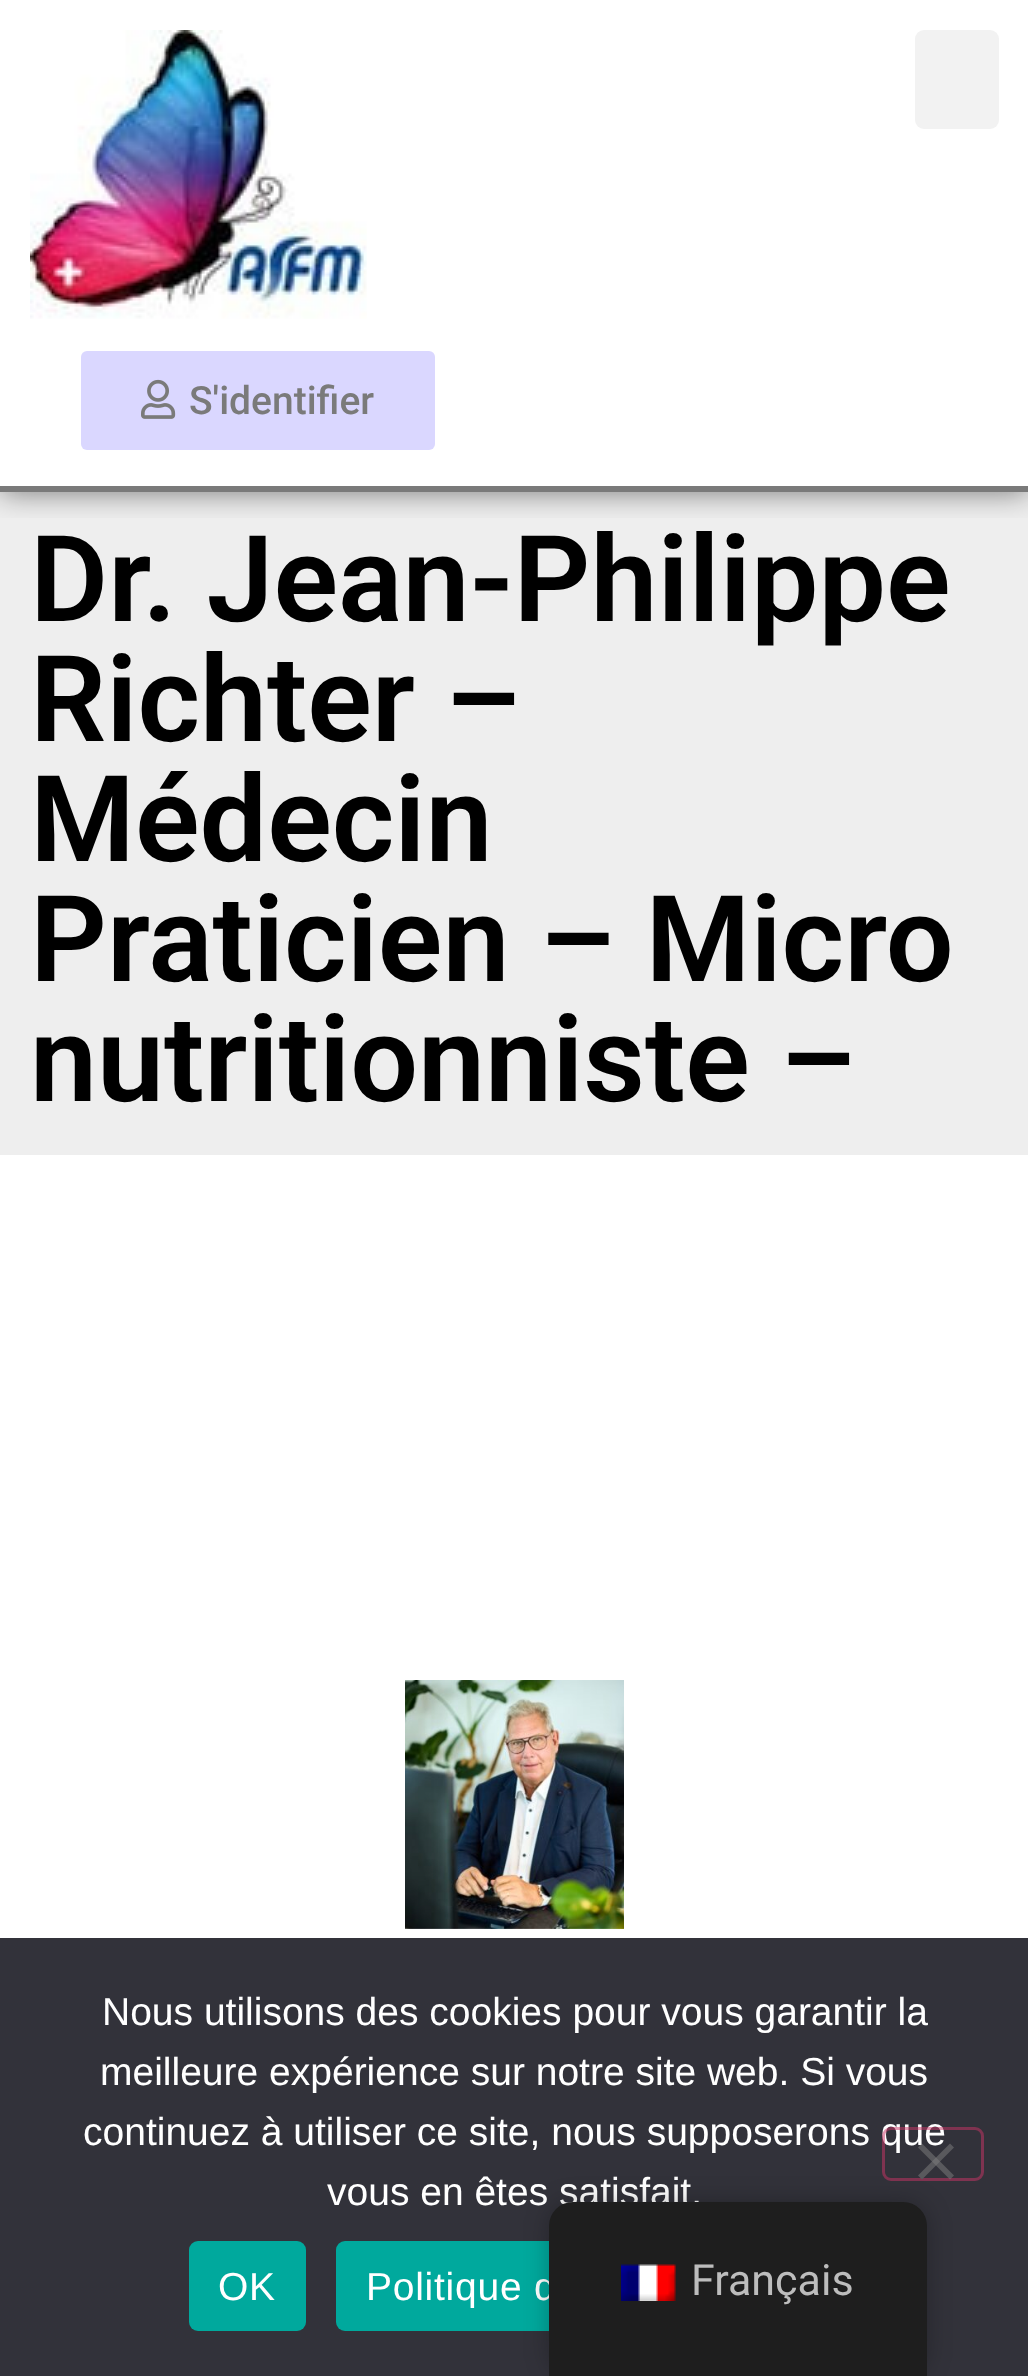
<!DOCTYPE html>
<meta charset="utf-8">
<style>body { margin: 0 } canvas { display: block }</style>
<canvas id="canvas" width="1028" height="2376"></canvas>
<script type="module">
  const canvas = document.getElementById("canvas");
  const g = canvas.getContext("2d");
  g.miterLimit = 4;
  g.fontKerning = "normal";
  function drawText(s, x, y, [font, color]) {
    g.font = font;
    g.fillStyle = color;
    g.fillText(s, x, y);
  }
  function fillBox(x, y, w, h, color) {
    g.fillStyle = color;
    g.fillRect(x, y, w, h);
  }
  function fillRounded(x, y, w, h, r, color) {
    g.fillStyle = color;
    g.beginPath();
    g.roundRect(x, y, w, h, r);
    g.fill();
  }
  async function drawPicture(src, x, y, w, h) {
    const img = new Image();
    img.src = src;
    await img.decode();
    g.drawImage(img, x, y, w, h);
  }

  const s1 = ["500 39px Roboto", "#7A7A7A"];
  const s2 = ["600 120px Roboto", "#000000"];
  const s3 = ["39px Liberation Sans", "#FFFFFF"];
  const s4 = ["43px Roboto", "#BDBDBD"];

  fillBox(0, 0, 1028, 2376, "#FFFFFF");
  fillBox(0, 492, 1028, 663, "#EEEEEE");
  g.save();
  g.beginPath();
  g.rect(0, 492, 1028, 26);
  g.clip();
  g.fillStyle = "rgba(0, 0, 0, 0.5)";
  g.filter = "blur(15px)";
  g.beginPath();
  g.rect(0, 0, 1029, 492);
  g.fill();
  g.filter = "none";
  g.restore();
  fillBox(0, 486, 1028, 6, "#7A7A7A");
  await drawPicture("pic1.png", 30, 30, 337, 289);
  fillRounded(915, 30, 84, 99, 9, "#F2F2F2");
  fillRounded(81, 351, 354, 99, 6, "#DAD7FF");
  await drawPicture("pic2.png", 141, 379, 35, 40);
  drawText("S'identifier", 189, 414, s1);
  drawText("Dr. Jean-Philippe", 30, 621, s2);
  drawText("Richter –", 30, 741, s2);
  drawText("Médecin", 30, 861, s2);
  drawText("Praticien – Micro", 30, 981, s2);
  drawText("nutritionniste –", 30, 1101, s2);
  await drawPicture("pic3.png", 405, 1680, 219, 249);
  fillBox(0, 1938, 1028, 438, "#32323A");
  drawText("Nous utilisons des cookies pour vous garantir la", 102, 2025, s3);
  drawText("meilleure expérience sur notre site web. Si vous", 100, 2085, s3);
  drawText("continuez à utiliser ce site, nous supposerons que", 83, 2145, s3);
  drawText("vous en êtes satisfait.", 327, 2205, s3);
  g.beginPath();
  g.roundRect(883.5, 2128.5, 99, 51, 7.5);
  g.strokeStyle = "rgba(204, 51, 102, 0.5)";
  g.lineWidth = 3;
  g.stroke();
  g.fillStyle = "#59595D";
  g.beginPath();
  g.moveTo(950, 2143.5);
  g.lineTo(954, 2147.5);
  g.lineTo(922, 2179.5);
  g.lineTo(918, 2175.5);
  g.closePath();
  g.fill();
  g.fillStyle = "rgba(128, 128, 128, 0.5)";
  g.beginPath();
  g.moveTo(918, 2147.5);
  g.lineTo(922, 2143.5);
  g.lineTo(954, 2175.5);
  g.lineTo(950, 2179.5);
  g.closePath();
  g.fill();
  fillRounded(189, 2241, 117, 90, 9, "#00A99D");
  g.letterSpacing = "0.75px";
  drawText("OK", 218, 2300, s3);
  fillRounded(336, 2241, 534, 90, 9, "#00A99D");
  drawText("Politique d", 366, 2300, s3);
  g.fillStyle = "rgba(0, 0, 0, 0.25)";
  g.filter = "blur(12px)";
  g.beginPath();
  g.roundRect(549, 2202, 378, 174, 24);
  g.fill();
  g.filter = "none";
  g.fillStyle = "#1E1E1E";
  g.beginPath();
  g.roundRect(549, 2202, 378, 174, [24, 24, 0, 0]);
  g.fill();
  await drawPicture("pic4.png", 621, 2264, 55, 37);
  g.letterSpacing = "0px";
  drawText("Français", 691, 2295, s4);
</script>
